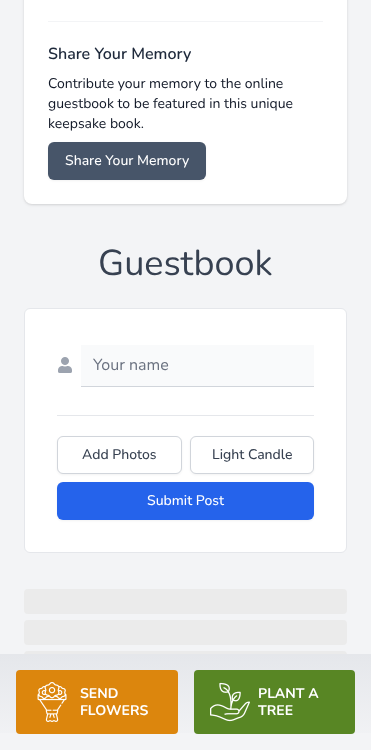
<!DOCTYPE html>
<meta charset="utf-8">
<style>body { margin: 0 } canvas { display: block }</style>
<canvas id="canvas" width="371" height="750"></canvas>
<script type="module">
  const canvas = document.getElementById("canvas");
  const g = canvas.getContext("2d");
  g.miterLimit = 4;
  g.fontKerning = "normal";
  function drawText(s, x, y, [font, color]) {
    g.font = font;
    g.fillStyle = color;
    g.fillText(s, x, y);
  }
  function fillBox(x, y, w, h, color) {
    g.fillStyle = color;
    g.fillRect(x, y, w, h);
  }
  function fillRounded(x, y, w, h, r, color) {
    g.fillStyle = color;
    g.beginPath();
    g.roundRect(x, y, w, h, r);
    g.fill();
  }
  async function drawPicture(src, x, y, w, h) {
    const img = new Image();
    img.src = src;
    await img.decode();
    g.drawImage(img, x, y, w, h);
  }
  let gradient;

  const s1 = ["600 16px Nunito", "#1E293B"];
  const s2 = ["14px Nunito", "#111827"];
  const s3 = ["500 14px Nunito", "#FFFFFF"];
  const s4 = ["36px Nunito", "#374151"];
  const s5 = ["16px Nunito", "#6B7280"];
  const s6 = ["500 14px Nunito", "#374151"];
  const s7 = ["bold 14px Nunito", "#FFFFFF"];

  fillBox(0, 0, 371, 750, "#F3F4F6");
  g.fillStyle = "rgba(0, 0, 0, 0.1)";
  g.filter = "blur(1px)";
  g.beginPath();
  g.roundRect(25, -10, 321, 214, 7);
  g.fill();
  g.filter = "none";
  g.filter = "blur(1.5px)";
  g.beginPath();
  g.roundRect(24, -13, 323, 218, 8);
  g.fill();
  g.filter = "none";
  fillRounded(24, -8, 323, 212, 8, "#FFFFFF");
  fillBox(48, 21, 275, 1, "#F3F4F6");
  drawText("Share Your Memory", 48, 59, s1);
  drawText("Contribute your memory to the online", 48, 88, s2);
  drawText("guestbook to be featured in this unique", 48, 108, s2);
  drawText("keepsake book.", 48, 128, s2);
  g.fillStyle = "rgba(0, 0, 0, 0.05)";
  g.filter = "blur(1px)";
  g.beginPath();
  g.roundRect(48, 143, 158, 38, 6);
  g.fill();
  g.filter = "none";
  fillRounded(48, 142, 158, 38, 6, "#475569");
  drawText("Share Your Memory", 65, 165, s3);
  drawText("Guestbook", 98, 275, s4);
  g.fillStyle = "#FFFFFF";
  g.beginPath();
  g.roundRect(24.5, 308.5, 322, 244, 5.5);
  g.fill();
  g.strokeStyle = "#E5E7EB";
  g.stroke();
  await drawPicture("pic1.png", 58, 357, 14, 16);
  fillBox(81, 386, 233, 1, "#D1D5DB");
  fillBox(81, 345, 233, 41, "#F9FAFB");
  drawText("Your name", 93, 370, s5);
  fillBox(57, 415, 257, 1, "#E5E7EB");
  g.fillStyle = "rgba(0, 0, 0, 0.05)";
  g.filter = "blur(1px)";
  g.beginPath();
  g.roundRect(57, 437, 125, 38, 6);
  g.fill();
  g.filter = "none";
  g.fillStyle = "#FFFFFF";
  g.beginPath();
  g.roundRect(57.5, 436.5, 124, 37, 5.5);
  g.fill();
  g.strokeStyle = "#D1D5DB";
  g.stroke();
  drawText("Add Photos", 82, 459, s6);
  g.fillStyle = "rgba(0, 0, 0, 0.05)";
  g.filter = "blur(1px)";
  g.beginPath();
  g.roundRect(190, 437, 124, 38, 6);
  g.fill();
  g.filter = "none";
  g.fillStyle = "#FFFFFF";
  g.beginPath();
  g.roundRect(190.5, 436.5, 123, 37, 5.5);
  g.fill();
  g.stroke();
  drawText("Light Candle", 212, 459, s6);
  g.fillStyle = "rgba(0, 0, 0, 0.05)";
  g.filter = "blur(1px)";
  g.beginPath();
  g.roundRect(57, 483, 257, 38, 6);
  g.fill();
  g.filter = "none";
  fillRounded(57, 482, 257, 38, 6, "#2563EB");
  drawText("Submit Post", 147, 505, s3);
  fillRounded(24, 589, 323, 25, 4, "#EBEBEB");
  fillRounded(24, 620, 323, 25, 4, "#EBEBEB");
  fillRounded(24, 651, 323, 25, 4, "#EBEBEB");
  gradient = g.createLinearGradient(186, 654, 186, 750);
  gradient.addColorStop(0, "#E5E7EB");
  gradient.addColorStop(1, "#F3F4F6");
  g.fillStyle = gradient;
  g.fillRect(0, 654, 371, 79);
  fillRounded(16, 670, 162, 64, 4, "#DC860D");
  await drawPicture("pic2.png", 37, 682, 30, 40);
  drawText("SEND", 80, 698, s7);
  drawText("FLOWERS", 80, 715, s7);
  fillRounded(194, 670, 161, 64, 4, "#588624");
  await drawPicture("pic3.png", 210, 682, 40, 40);
  drawText("PLANT A", 258, 698, s7);
  drawText("TREE", 258, 715, s7);
</script>
